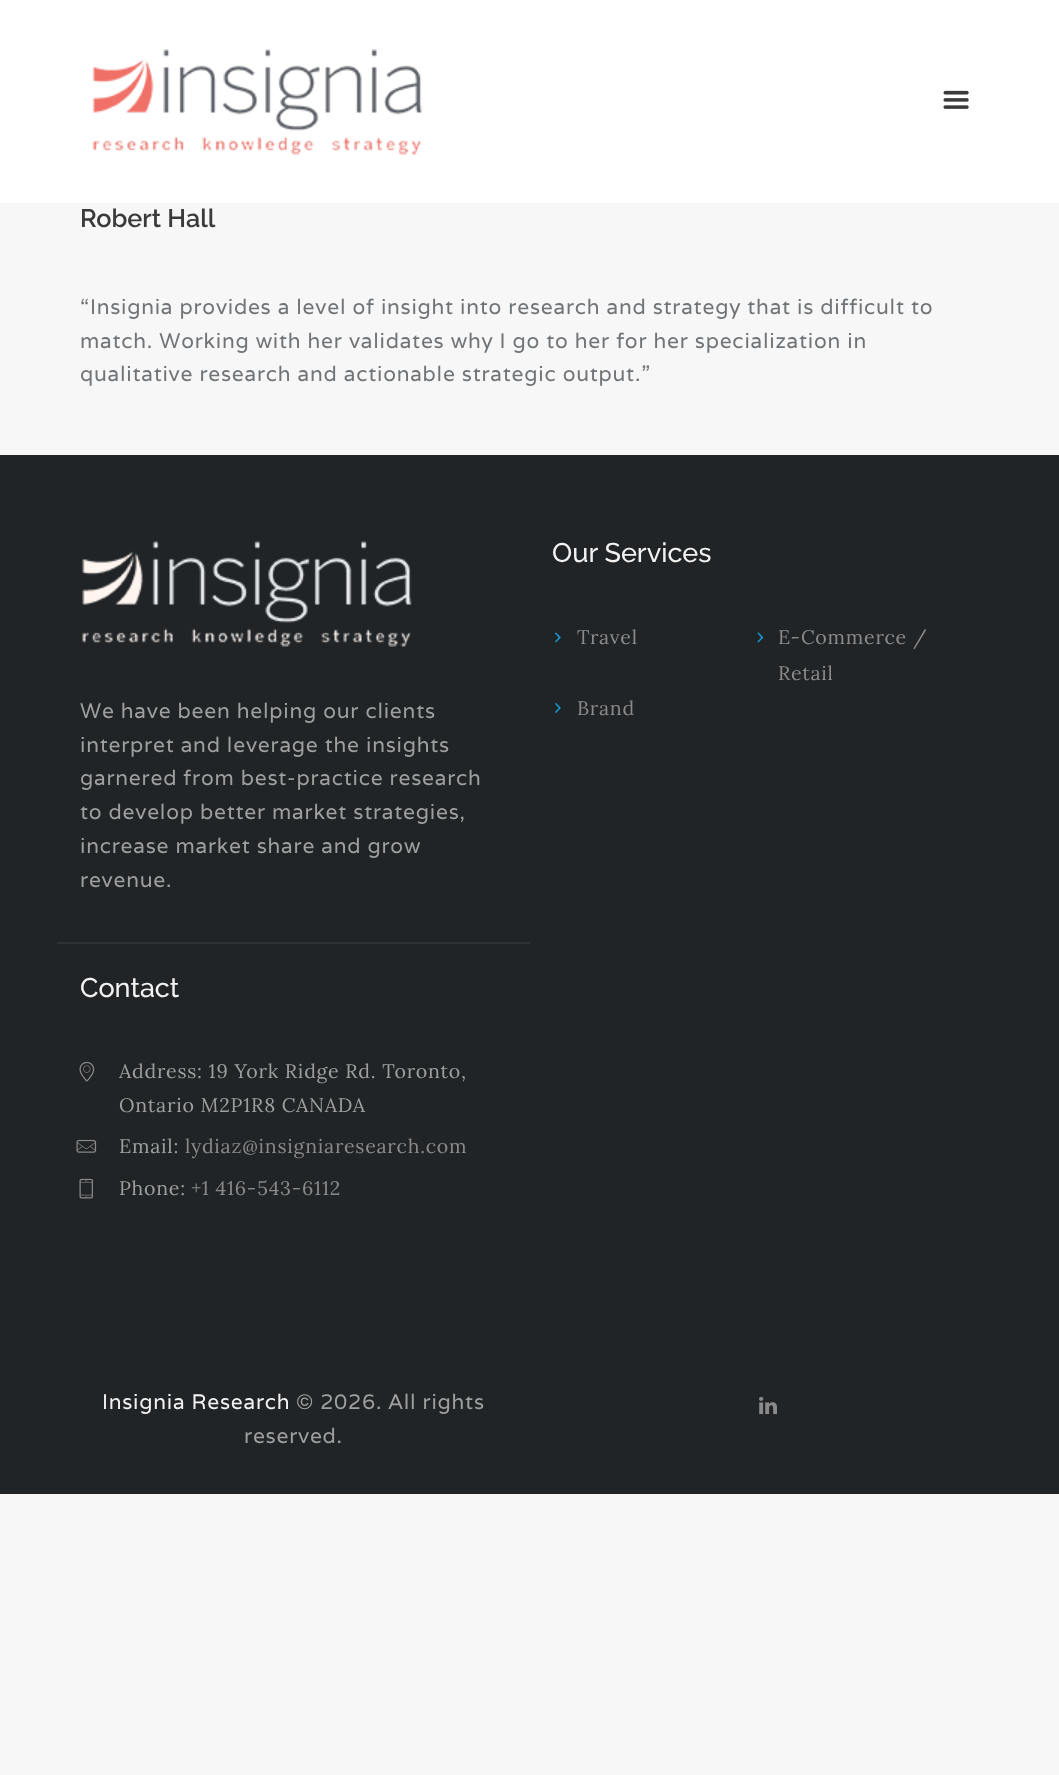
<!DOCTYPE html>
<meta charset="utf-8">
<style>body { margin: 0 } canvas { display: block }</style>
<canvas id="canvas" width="1059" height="1775"></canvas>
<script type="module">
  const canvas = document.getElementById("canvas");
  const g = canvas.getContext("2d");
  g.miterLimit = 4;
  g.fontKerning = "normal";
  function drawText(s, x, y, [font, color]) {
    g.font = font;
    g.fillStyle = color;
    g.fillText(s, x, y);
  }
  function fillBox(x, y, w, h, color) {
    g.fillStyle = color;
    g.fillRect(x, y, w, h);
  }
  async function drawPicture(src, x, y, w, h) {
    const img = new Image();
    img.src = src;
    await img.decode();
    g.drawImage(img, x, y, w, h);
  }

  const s1 = ["600 25.25px Raleway", "#3A3A3A"];
  const s2 = ["21px Varela", "#717477"];
  const s3 = ["500 27px Raleway", "#F2F2F2"];
  const s4 = ["19.6px Lora", "#8A8A8A"];
  const s5 = ["21px Varela", "#9E9F9F"];
  const s6 = ["19.6px Lora", "#9E9F9F"];
  const s7 = ["21px Varela", "#F2F2F2"];

  fillBox(0, 0, 1059, 1775, "#F7F7F7");
  fillBox(0, 0, 1059, 203, "#FFFFFF");
  await drawPicture("pic1.png", 92, 49, 330, 106);
  await drawPicture("pic2.png", 943, 90, 26, 19);
  drawText("Robert Hall", 80, 227, s1);
  g.letterSpacing = "0.75px";
  drawText("“Insignia provides a level of insight into research and strategy that is difficult to", 80, 314, s2);
  drawText("match. Working with her validates why I go to her for her specialization in", 80, 348, s2);
  drawText("qualitative research and actionable strategic output.”", 80, 381, s2);
  fillBox(0, 455, 1059, 1039, "#202426");
  g.letterSpacing = "0px";
  drawText("Our Services", 552, 562, s3);
  await drawPicture("pic3.png", 555, 632, 6, 11);
  g.letterSpacing = "0.75px";
  drawText("Travel", 577, 644, s4);
  await drawPicture("pic4.png", 757, 632, 7, 11);
  drawText("E-Commerce /", 778, 644, s4);
  drawText("Retail", 778, 680, s4);
  await drawPicture("pic5.png", 555, 703, 6, 10);
  drawText("Brand", 577, 715, s4);
  await drawPicture("pic6.png", 82, 541, 330, 106);
  drawText("We have been helping our clients", 80, 718, s5);
  drawText("interpret and leverage the insights", 80, 752, s5);
  drawText("garnered from best-practice research", 80, 785, s5);
  drawText("to develop better market strategies,", 80, 819, s5);
  drawText("increase market share and grow", 80, 853, s5);
  drawText("revenue.", 80, 887, s5);
  fillBox(57, 942, 473, 2, "#2D3235");
  g.letterSpacing = "0px";
  drawText("Contact", 80, 997, s3);
  await drawPicture("pic7.png", 79, 1061, 16, 21);
  g.letterSpacing = "0.75px";
  drawText("Address: 19 York Ridge Rd. Toronto,", 119, 1078, s6);
  drawText("Ontario M2P1R8 CANADA", 119, 1112, s6);
  await drawPicture("pic8.png", 76, 1139, 21, 14);
  drawText("Email:", 119, 1153, s6);
  drawText("lydiaz@insigniaresearch.com", 185, 1153, s4);
  await drawPicture("pic9.png", 79, 1178, 14, 21);
  drawText("Phone:", 119, 1195, s6);
  drawText("+1 416-543-6112", 191, 1195, s4);
  drawText("Insignia Research", 102, 1409, s7);
  drawText("© 2026. All rights", 296, 1409, s5);
  drawText("reserved.", 244, 1443, s5);
  await drawPicture("pic10.png", 759, 1396, 18, 19);
</script>
